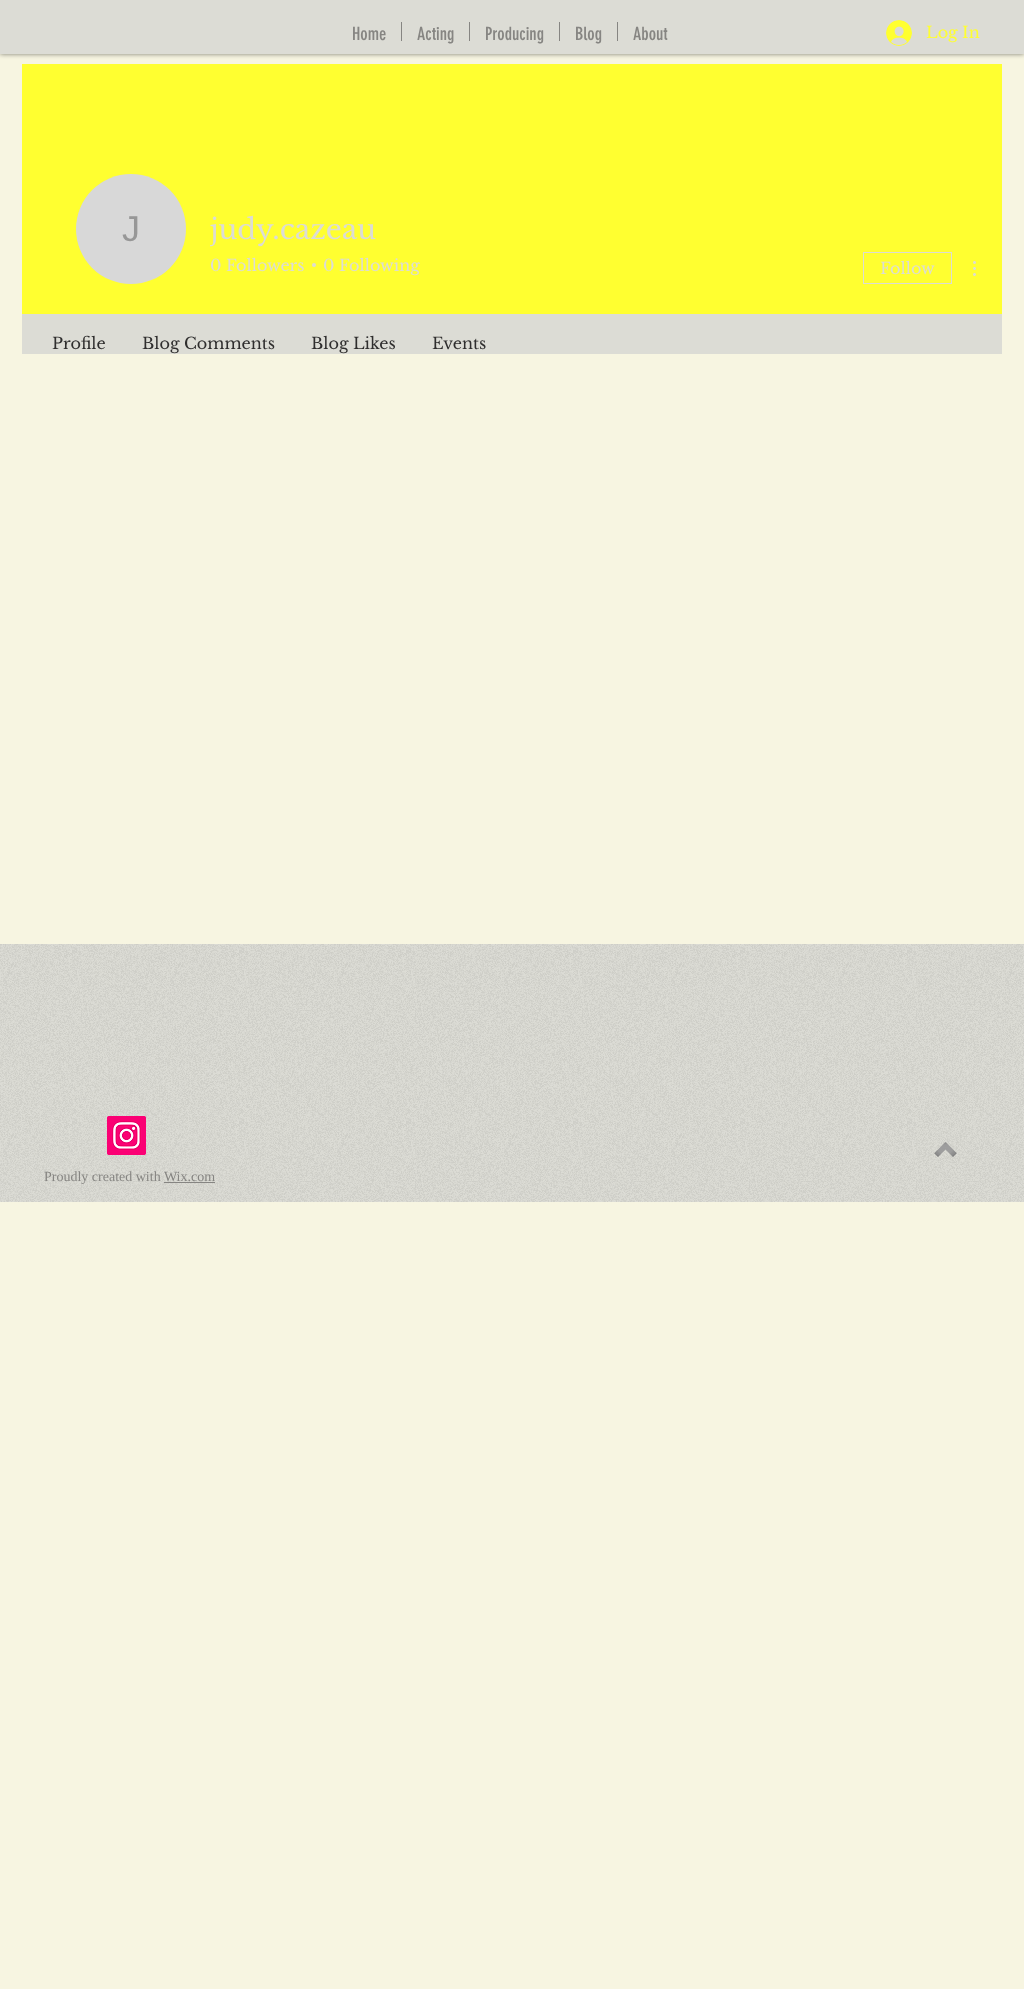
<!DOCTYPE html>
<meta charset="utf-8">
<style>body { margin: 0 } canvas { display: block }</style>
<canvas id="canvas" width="1024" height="1989"></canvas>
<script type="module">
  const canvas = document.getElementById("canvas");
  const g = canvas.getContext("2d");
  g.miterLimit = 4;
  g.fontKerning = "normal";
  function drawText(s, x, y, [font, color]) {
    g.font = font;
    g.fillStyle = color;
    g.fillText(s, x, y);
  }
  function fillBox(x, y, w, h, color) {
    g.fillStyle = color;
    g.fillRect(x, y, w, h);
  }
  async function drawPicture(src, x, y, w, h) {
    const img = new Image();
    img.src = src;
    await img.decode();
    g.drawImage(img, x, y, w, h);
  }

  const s1 = ["18px 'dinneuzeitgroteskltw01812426'", "#868582"];
  const s2 = ["16px Libre Baskerville", "#FFFF30"];
  const s3 = ["36px Liberation Sans", "#979797"];
  const s4 = ["28px Libre Baskerville", "#DCDCD5"];
  const s5 = ["16px Libre Baskerville", "#DCDCD5"];
  const s6 = ["16px Libre Baskerville", "#2F2E2E"];
  const s7 = ["14px Liberation Serif", "#868582"];

  fillBox(0, 0, 1024, 1989, "#F7F5E1");
  g.fillStyle = "rgba(0, 0, 0, 0.5)";
  g.filter = "blur(2.5px)";
  g.beginPath();
  g.rect(0, 0, 1024, 54);
  g.fill();
  g.filter = "none";
  fillBox(0, 0, 1024, 54, "#DCDCD5");
  drawText("Home", 352, 40, s1);
  fillBox(401, 22, 1, 19, "#868582");
  drawText("Acting", 417, 40, s1);
  fillBox(469, 22, 1, 19, "#868582");
  drawText("Producing", 485, 40, s1);
  fillBox(559, 22, 1, 19, "#868582");
  drawText("Blog", 575, 40, s1);
  fillBox(617, 22, 1, 19, "#868582");
  drawText("About", 633, 40, s1);
  await drawPicture("pic1.png", 886, 20, 26, 26);
  drawText("Log In", 926, 38, s2);
  fillBox(22, 64, 980, 250, "#FFFF30");
  g.fillStyle = "#D8D8D8";
  g.beginPath();
  g.arc(131, 229, 55, 0, Math.PI * 2);
  g.fill();
  drawText("J", 122, 241, s3);
  g.save();
  g.beginPath();
  g.rect(210, 210, 166, 40);
  g.clip();
  drawText("judy.cazeau", 210, 239, s4);
  g.restore();
  drawText("0", 210, 271, s5);
  drawText("Followers", 226, 271, s5);
  g.beginPath();
  g.arc(314, 265, 2, 0, Math.PI * 2);
  g.fill();
  drawText("0", 323, 271, s5);
  drawText("Following", 339, 271, s5);
  g.strokeStyle = "#DCDCD5";
  g.strokeRect(863.5, 252.5, 88, 31);
  drawText("Follow", 880, 274, s5);
  await drawPicture("pic2.png", 973, 261, 3, 15);
  fillBox(22, 314, 980, 40, "#DCDCD5");
  drawText("Profile", 52, 349, s6);
  drawText("Blog Comments", 142, 349, s6);
  drawText("Blog Likes", 311, 349, s6);
  drawText("Events", 432, 349, s6);
  fillBox(0, 944, 1024, 258, "#DCDCD5");
  await drawPicture("pic3.png", 0, 944, 1024, 258);
  await drawPicture("pic4.png", 107, 1116, 39, 39);
  await drawPicture("pic5.png", 934, 1142, 23, 15);
  drawText("Proudly created with Wix.com", 44, 1181, s7);
  fillBox(164, 1182, 51, 1, "#868582");
</script>
